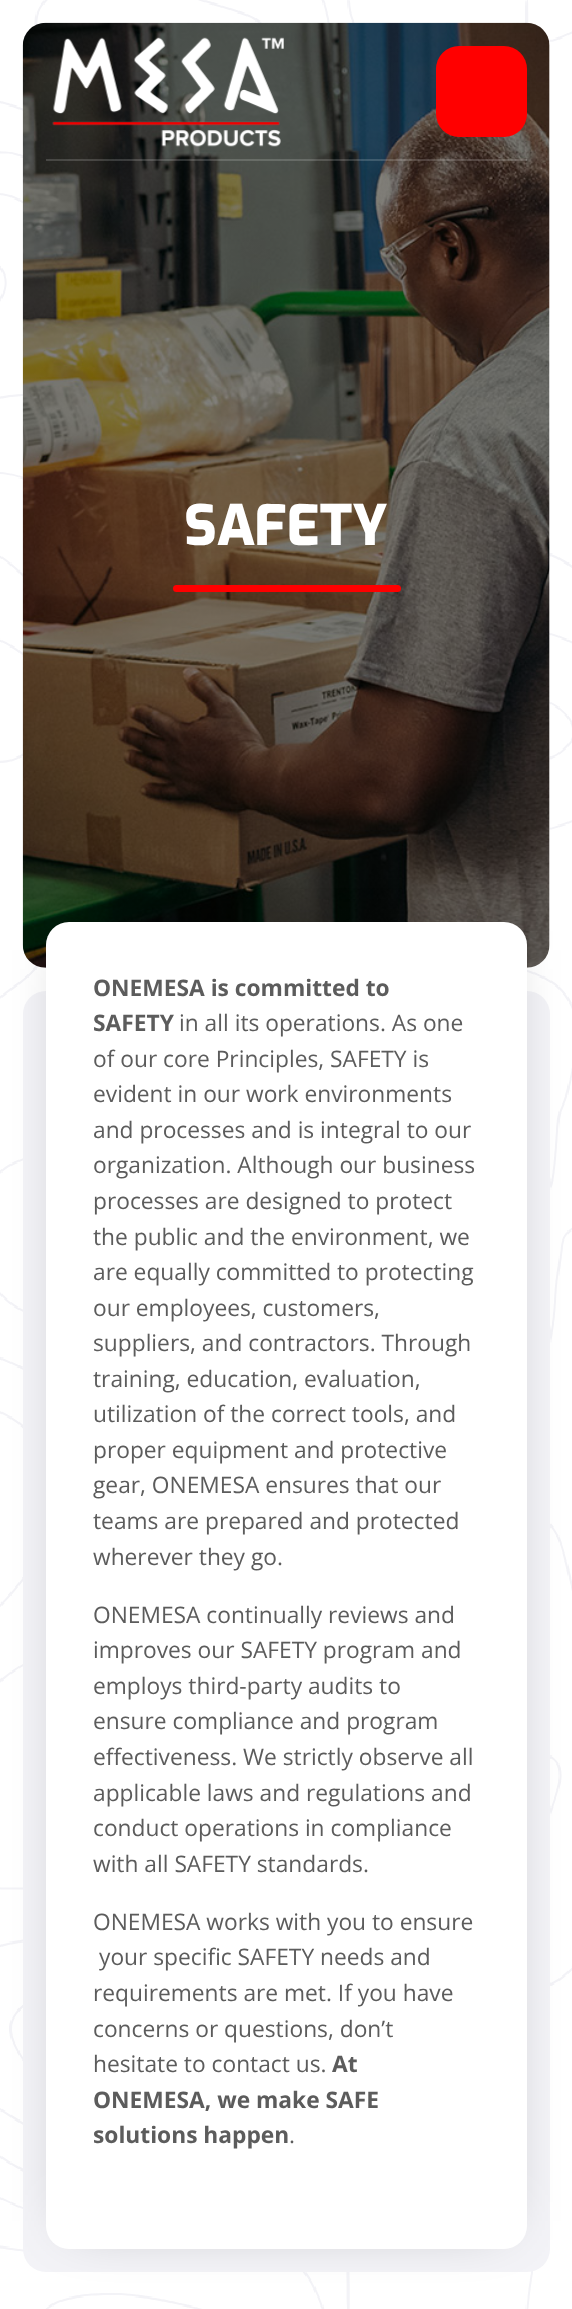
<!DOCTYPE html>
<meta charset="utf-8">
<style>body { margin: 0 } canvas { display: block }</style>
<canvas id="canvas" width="572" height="2309"></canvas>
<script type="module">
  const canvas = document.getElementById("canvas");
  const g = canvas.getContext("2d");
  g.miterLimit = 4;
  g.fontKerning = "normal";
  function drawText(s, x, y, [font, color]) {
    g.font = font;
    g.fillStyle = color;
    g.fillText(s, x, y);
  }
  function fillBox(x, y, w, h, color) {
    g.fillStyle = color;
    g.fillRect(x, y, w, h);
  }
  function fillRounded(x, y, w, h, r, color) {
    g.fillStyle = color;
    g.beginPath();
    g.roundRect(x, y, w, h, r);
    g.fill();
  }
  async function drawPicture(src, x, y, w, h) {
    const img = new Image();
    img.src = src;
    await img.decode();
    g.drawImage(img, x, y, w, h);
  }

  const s1 = ["800 55.5px Exo", "#FFFFFF"];
  const s2 = ["bold 22.75px Open Sans", "#5C5C5C"];
  const s3 = ["22.75px Open Sans", "#5C5C5C"];

  fillBox(0, 0, 572, 2309, "#FFFFFF");
  await drawPicture("pic1.png", 0, 0, 572, 2309);
  await drawPicture("pic2.png", 22, 22, 528, 946);
  fillBox(46, 159, 481, 2, "rgba(255, 255, 255, 0.16)");
  await drawPicture("pic3.png", 52, 37, 232, 110);
  fillRounded(436, 46, 91, 91, 23, "#FF0000");
  drawText("SAFETY", 184, 545, s1);
  fillRounded(173, 585, 228, 7, 3.5, "#FF0000");
  fillRounded(23, 991, 527, 1281, 23, "#F3F3F7");
  g.fillStyle = "rgba(0, 0, 0, 0.32)";
  g.filter = "blur(28px)";
  g.beginPath();
  g.rect(74, 950, 425, 1271);
  g.fill();
  g.filter = "none";
  fillRounded(46, 922, 481, 1327, 23, "#FFFFFF");
  drawText("ONEMESA is committed to", 93, 996, s2);
  drawText("SAFETY", 93, 1031, s2);
  drawText("in all its operations. As one", 179, 1031, s3);
  drawText("of our core Principles, SAFETY is", 93, 1067, s3);
  drawText("evident in our work environments", 93, 1102, s3);
  drawText("and processes and is integral to our", 93, 1138, s3);
  drawText("organization. Although our business", 93, 1173, s3);
  drawText("processes are designed to protect", 93, 1209, s3);
  drawText("the public and the environment, we", 93, 1245, s3);
  drawText("are equally committed to protecting", 93, 1280, s3);
  drawText("our employees, customers,", 93, 1316, s3);
  drawText("suppliers, and contractors. Through", 93, 1351, s3);
  drawText("training, education, evaluation,", 93, 1387, s3);
  drawText("utilization of the correct tools, and", 93, 1422, s3);
  drawText("proper equipment and protective", 93, 1458, s3);
  drawText("gear, ONEMESA ensures that our", 93, 1493, s3);
  drawText("teams are prepared and protected", 93, 1529, s3);
  drawText("wherever they go.", 93, 1565, s3);
  drawText("ONEMESA continually reviews and", 93, 1623, s3);
  drawText("improves our SAFETY program and", 93, 1658, s3);
  drawText("employs third-party audits to", 93, 1694, s3);
  drawText("ensure compliance and program", 93, 1729, s3);
  drawText("effectiveness. We strictly observe all", 93, 1765, s3);
  drawText("applicable laws and regulations and", 93, 1801, s3);
  drawText("conduct operations in compliance", 93, 1836, s3);
  drawText("with all SAFETY standards.", 93, 1872, s3);
  drawText("ONEMESA works with you to ensure", 93, 1930, s3);
  drawText("your specific SAFETY needs and", 99, 1965, s3);
  drawText("requirements are met. If you have", 93, 2001, s3);
  drawText("concerns or questions, don’t", 93, 2037, s3);
  drawText("hesitate to contact us.", 93, 2072, s3);
  drawText("At", 332, 2072, s2);
  drawText("ONEMESA, we make SAFE", 93, 2108, s2);
  drawText("solutions happen", 93, 2143, s2);
  drawText(".", 289, 2143, s3);
</script>
